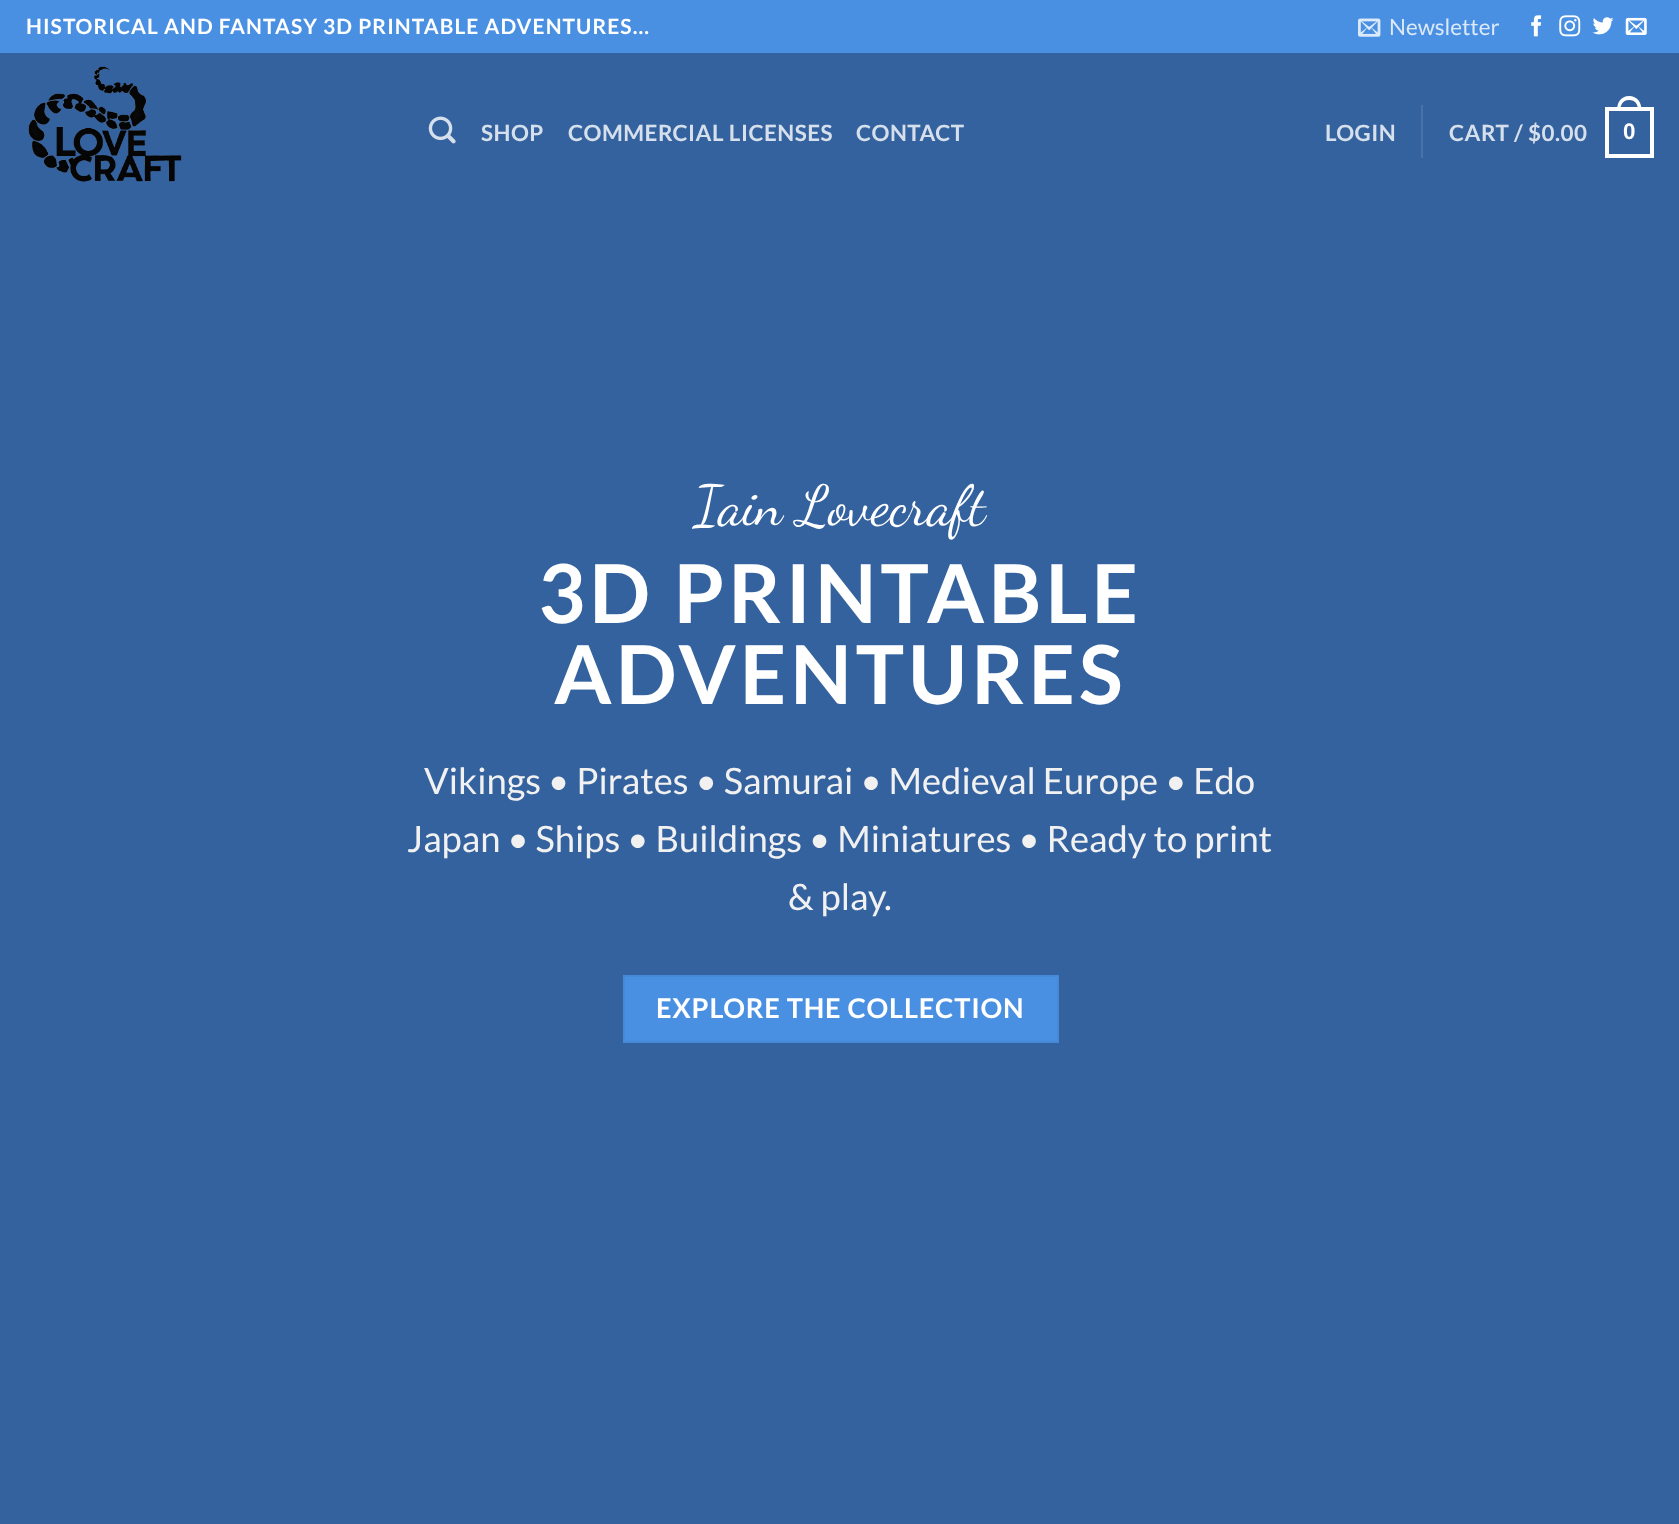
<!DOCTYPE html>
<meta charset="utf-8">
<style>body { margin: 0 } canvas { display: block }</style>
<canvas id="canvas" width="1679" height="1524"></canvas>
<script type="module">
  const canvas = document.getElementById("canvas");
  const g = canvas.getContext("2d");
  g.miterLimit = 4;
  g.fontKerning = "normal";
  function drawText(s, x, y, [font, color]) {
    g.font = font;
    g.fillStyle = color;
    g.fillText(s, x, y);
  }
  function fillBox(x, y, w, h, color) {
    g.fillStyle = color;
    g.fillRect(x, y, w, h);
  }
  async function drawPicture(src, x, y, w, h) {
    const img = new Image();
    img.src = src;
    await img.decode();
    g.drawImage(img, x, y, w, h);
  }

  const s1 = ["bold 21px Lato", "#FFFFFF"];
  const s2 = ["22.4px Lato", "#DBE9F9"];
  const s3 = ["bold 22.4px Lato", "#D6E0EC"];
  const s4 = ["bold 22.4px Liberation Sans", "#FFFFFF"];
  const s5 = ["56px Dancing Script", "#FFFFFF"];
  const s6 = ["bold 81.25px Lato", "#FFFFFF"];
  const s7 = ["36.4px Lato", "#F1F1F1"];
  const s8 = ["bold 27.2px Lato", "#FFFFFF"];

  fillBox(0, 0, 1679, 1524, "#34629E");
  fillBox(0, 0, 1679, 53, "#4A90E2");
  g.letterSpacing = "1.05px";
  drawText("HISTORICAL AND FANTASY 3D PRINTABLE ADVENTURES...", 26, 34, s1);
  await drawPicture("pic1.png", 1358, 18, 23, 19);
  g.letterSpacing = "0px";
  drawText("Newsletter", 1389, 35, s2);
  await drawPicture("pic2.png", 1531, 15, 11, 22);
  await drawPicture("pic3.png", 1559, 15, 22, 22);
  await drawPicture("pic4.png", 1592, 17, 22, 18);
  await drawPicture("pic5.png", 1625, 17, 22, 18);
  await drawPicture("pic6.png", 28, 66, 154, 116);
  await drawPicture("pic7.png", 428, 116, 28, 28);
  g.letterSpacing = "0.5px";
  drawText("SHOP", 481, 141, s3);
  drawText("COMMERCIAL LICENSES", 568, 141, s3);
  drawText("CONTACT", 856, 141, s3);
  drawText("LOGIN", 1325, 141, s3);
  fillBox(1421, 105, 2, 53, "#4872A8");
  drawText("CART / $0.00", 1449, 141, s3);
  g.strokeStyle = "#FFFFFF";
  g.lineWidth = 4;
  g.strokeRect(1607, 109, 45, 47);
  g.fillStyle = "#FFFFFF";
  g.beginPath();
  g.moveTo(1629, 96);
  g.bezierCurveTo(1637.5, 96, 1641.5, 102.5, 1641.5, 110);
  g.lineTo(1617, 110);
  g.bezierCurveTo(1617, 102.5, 1621, 96, 1629, 96);
  g.closePath();
  g.moveTo(1629, 100);
  g.bezierCurveTo(1635.5, 100, 1638, 104.5, 1638, 110);
  g.lineTo(1620.5, 110);
  g.bezierCurveTo(1620.5, 104.5, 1623, 100, 1629, 100);
  g.closePath();
  g.fill("evenodd");
  drawText("0", 1623, 139, s4);
  g.letterSpacing = "0px";
  drawText("Iain Lovecraft", 694, 524, s5);
  g.letterSpacing = "4px";
  drawText("3D PRINTABLE", 538, 623, s6);
  drawText("ADVENTURES", 554, 704, s6);
  g.letterSpacing = "0px";
  drawText("Vikings • Pirates • Samurai • Medieval Europe • Edo", 424, 794, s7);
  drawText("Japan • Ships • Buildings • Miniatures • Ready to print", 407, 852, s7);
  drawText("& play.", 788, 910, s7);
  g.fillStyle = "#4A90E2";
  g.beginPath();
  g.rect(624, 976, 434, 66);
  g.fill();
  g.strokeStyle = "#4689D7";
  g.lineWidth = 2;
  g.stroke();
  g.letterSpacing = "0.8px";
  drawText("EXPLORE THE COLLECTION", 656, 1018, s8);
</script>
